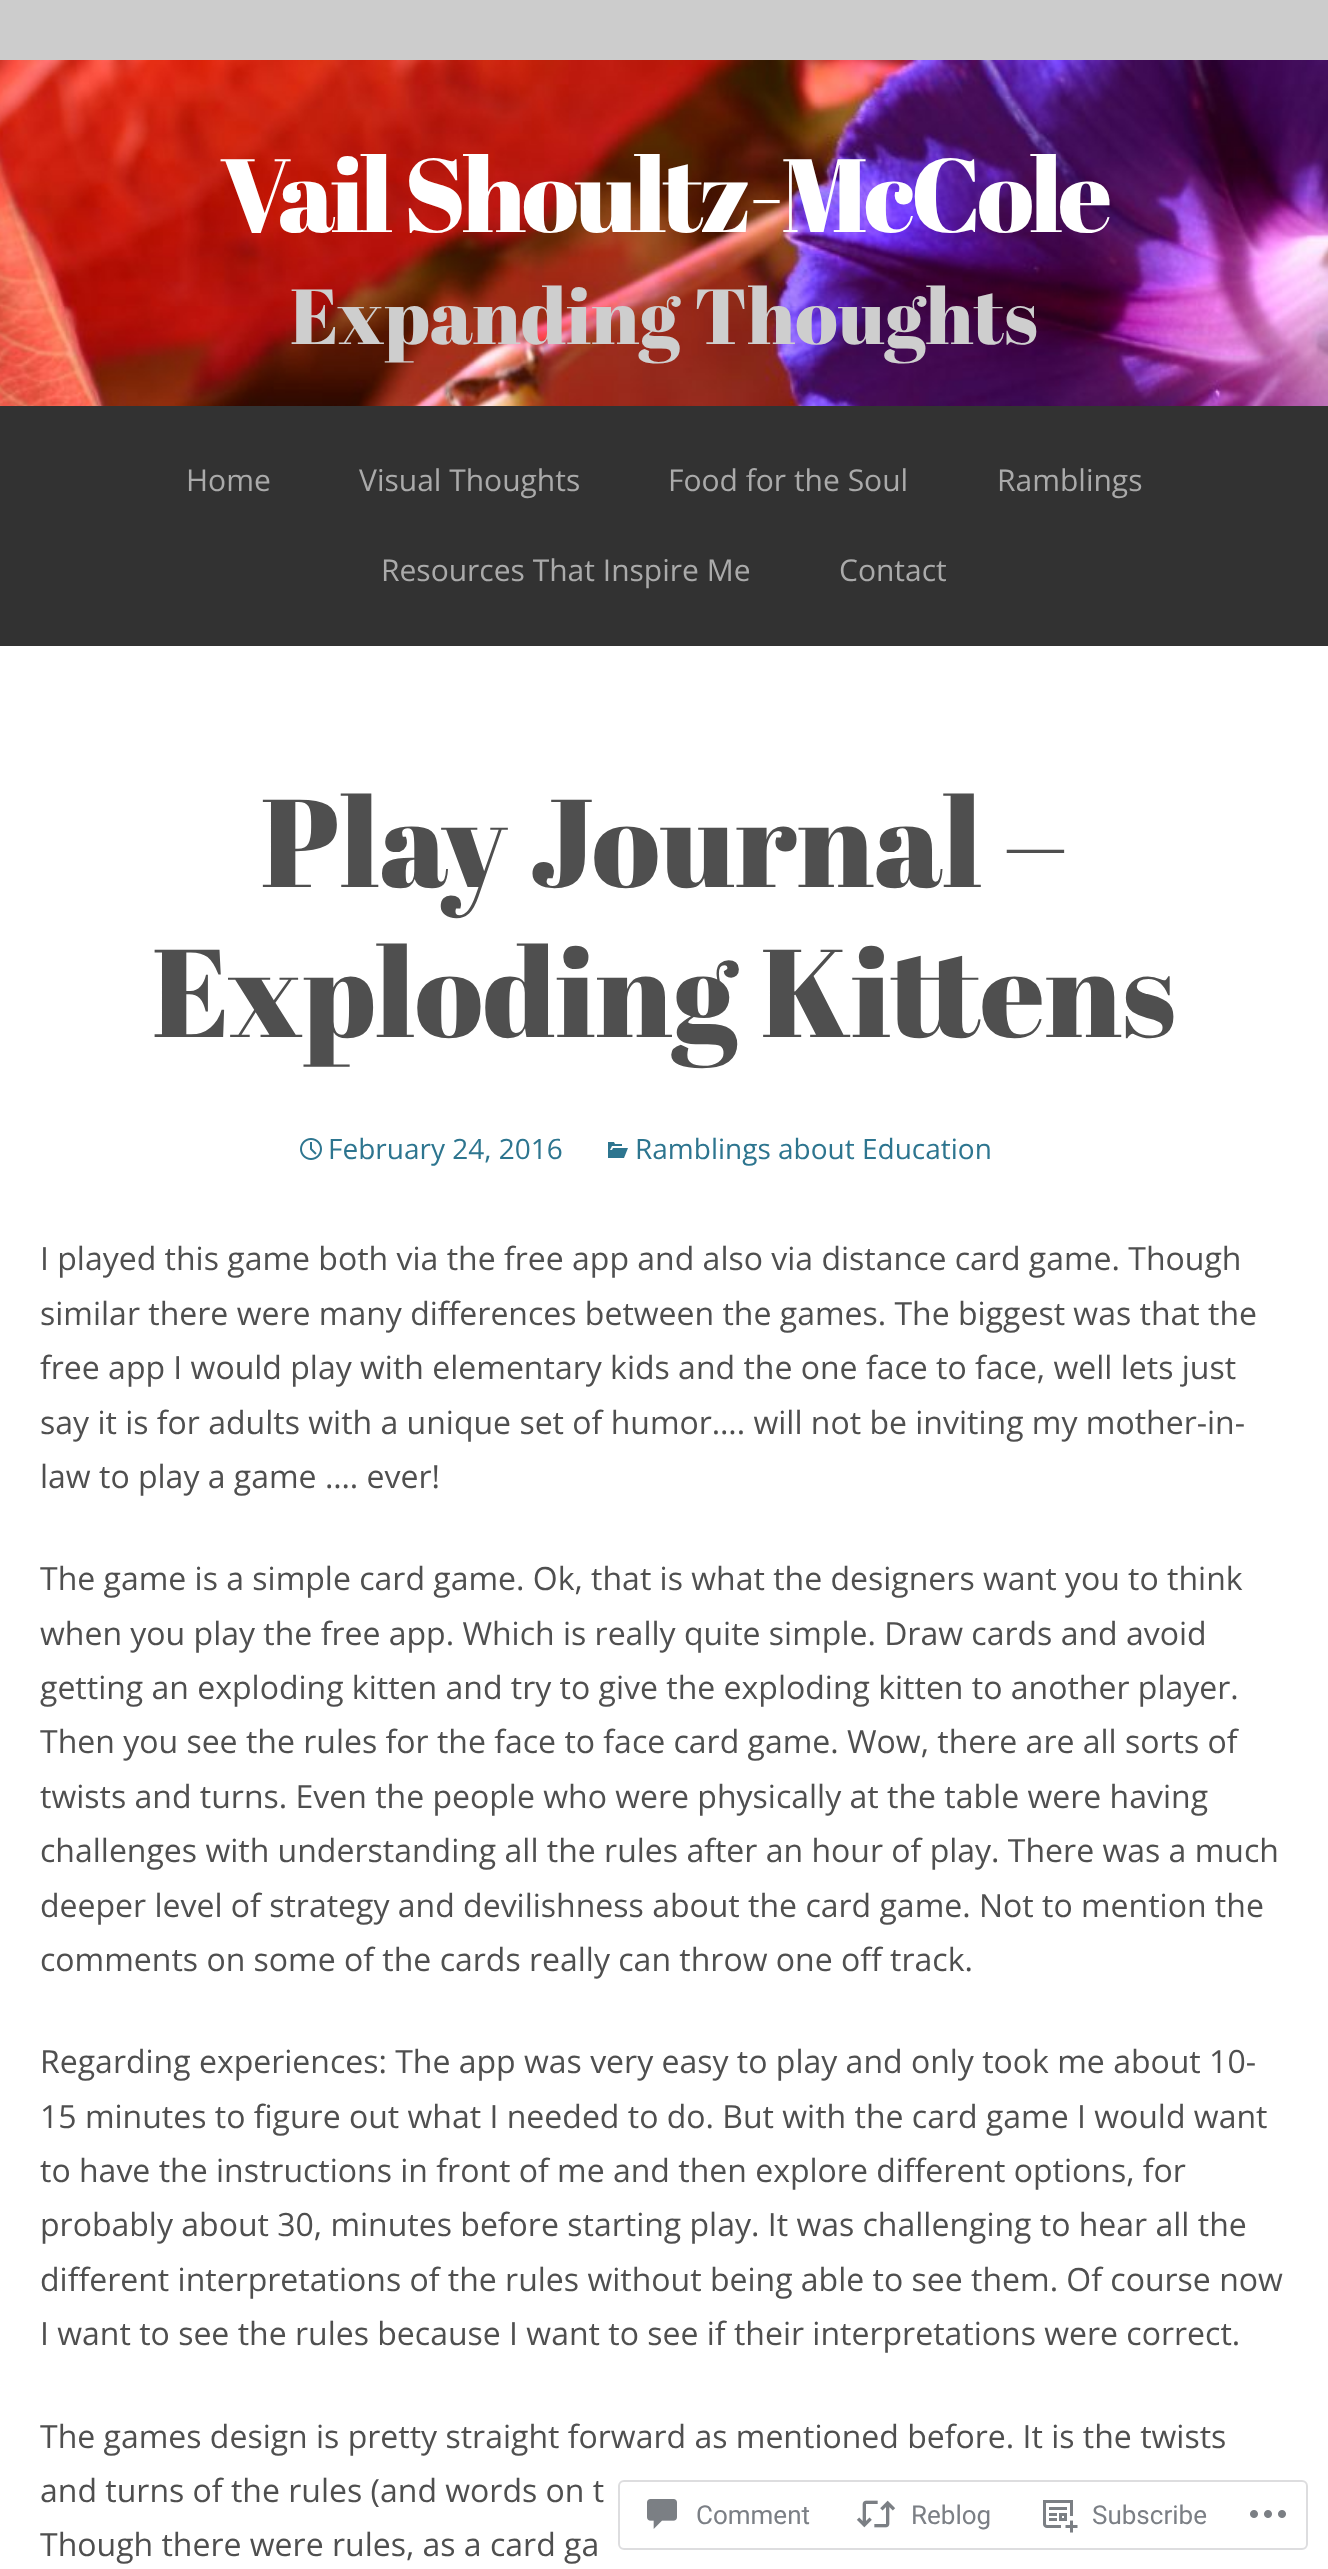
<!DOCTYPE html>
<meta charset="utf-8">
<style>body { margin: 0 } canvas { display: block }</style>
<canvas id="canvas" width="1328" height="2569"></canvas>
<script type="module">
  const canvas = document.getElementById("canvas");
  const g = canvas.getContext("2d");
  g.miterLimit = 4;
  g.fontKerning = "normal";
  function drawText(s, x, y, [font, color]) {
    g.font = font;
    g.fillStyle = color;
    g.fillText(s, x, y);
  }
  function fillBox(x, y, w, h, color) {
    g.fillStyle = color;
    g.fillRect(x, y, w, h);
  }
  async function drawPicture(src, x, y, w, h) {
    const img = new Image();
    img.src = src;
    await img.decode();
    g.drawImage(img, x, y, w, h);
  }

  const s1 = ["104px Abril Fatface", "#FFFFFF"];
  const s2 = ["78px Abril Fatface", "#CECECE"];
  const s3 = ["30px Open Sans", "#AAAAAA"];
  const s4 = ["124.75px Abril Fatface", "#4F4F4F"];
  const s5 = ["28px Open Sans", "#2D758F"];
  const s6 = ["32px Open Sans", "#4F4F4F"];
  const s7 = ["26px Roboto", "#7B7F85"];

  fillBox(0, 0, 1328, 2569, "#CCCCCC");
  await drawPicture("pic1.png", 0, 60, 1328, 346);
  g.letterSpacing = "-4px";
  drawText("Vail Shoultz-McCole", 220, 232, s1);
  g.letterSpacing = "0px";
  drawText("Expanding Thoughts", 290, 344, s2);
  fillBox(0, 406, 1328, 240, "#323232");
  drawText("Home", 186, 491, s3);
  drawText("Visual Thoughts", 359, 491, s3);
  drawText("Food for the Soul", 668, 491, s3);
  drawText("Ramblings", 997, 491, s3);
  drawText("Resources That Inspire Me", 381, 581, s3);
  drawText("Contact", 839, 581, s3);
  fillBox(0, 646, 1328, 1923, "#FFFFFF");
  drawText("Play Journal –", 261, 887, s4);
  drawText("Exploding Kittens", 152, 1037, s4);
  await drawPicture("pic2.png", 300, 1138, 22, 22);
  drawText("February 24, 2016", 328, 1159, s5);
  await drawPicture("pic3.png", 608, 1142, 20, 16);
  drawText("Ramblings about Education", 635, 1159, s5);
  drawText("I played this game both via the free app and also via distance card game. Though", 40, 1270, s6);
  drawText("similar there were many differences between the games. The biggest was that the", 40, 1325, s6);
  drawText("free app I would play with elementary kids and the one face to face, well lets just", 40, 1379, s6);
  drawText("say it is for adults with a unique set of humor…. will not be inviting my mother-in-", 40, 1434, s6);
  drawText("law to play a game …. ever!", 40, 1488, s6);
  drawText("The game is a simple card game. Ok, that is what the designers want you to think", 40, 1590, s6);
  drawText("when you play the free app. Which is really quite simple. Draw cards and avoid", 40, 1645, s6);
  drawText("getting an exploding kitten and try to give the exploding kitten to another player.", 40, 1699, s6);
  drawText("Then you see the rules for the face to face card game. Wow, there are all sorts of", 40, 1753, s6);
  drawText("twists and turns. Even the people who were physically at the table were having", 40, 1808, s6);
  drawText("challenges with understanding all the rules after an hour of play. There was a much", 40, 1862, s6);
  drawText("deeper level of strategy and devilishness about the card game. Not to mention the", 40, 1917, s6);
  drawText("comments on some of the cards really can throw one off track.", 40, 1971, s6);
  drawText("Regarding experiences: The app was very easy to play and only took me about 10-", 40, 2073, s6);
  drawText("15 minutes to figure out what I needed to do. But with the card game I would want", 40, 2128, s6);
  drawText("to have the instructions in front of me and then explore different options, for", 40, 2182, s6);
  drawText("probably about 30, minutes before starting play. It was challenging to hear all the", 40, 2236, s6);
  drawText("different interpretations of the rules without being able to see them. Of course now", 40, 2291, s6);
  drawText("I want to see the rules because I want to see if their interpretations were correct.", 40, 2345, s6);
  drawText("The games design is pretty straight forward as mentioned before. It is the twists", 40, 2448, s6);
  drawText("and turns of the rules (and words on t", 40, 2502, s6);
  drawText("Though there were rules, as a card ga", 40, 2556, s6);
  g.beginPath();
  g.roundRect(619, 2481, 688, 68, 5);
  g.strokeStyle = "rgba(220, 220, 222, 0.98)";
  g.lineWidth = 2;
  g.stroke();
  await drawPicture("pic4.png", 647, 2499, 30, 30);
  drawText("Comment", 696, 2524, s7);
  await drawPicture("pic5.png", 856, 2500, 40, 28);
  drawText("Reblog", 911, 2524, s7);
  await drawPicture("pic6.png", 1043, 2500, 35, 33);
  drawText("Subscribe", 1092, 2524, s7);
  await drawPicture("pic7.png", 1250, 2510, 36, 8);
</script>
